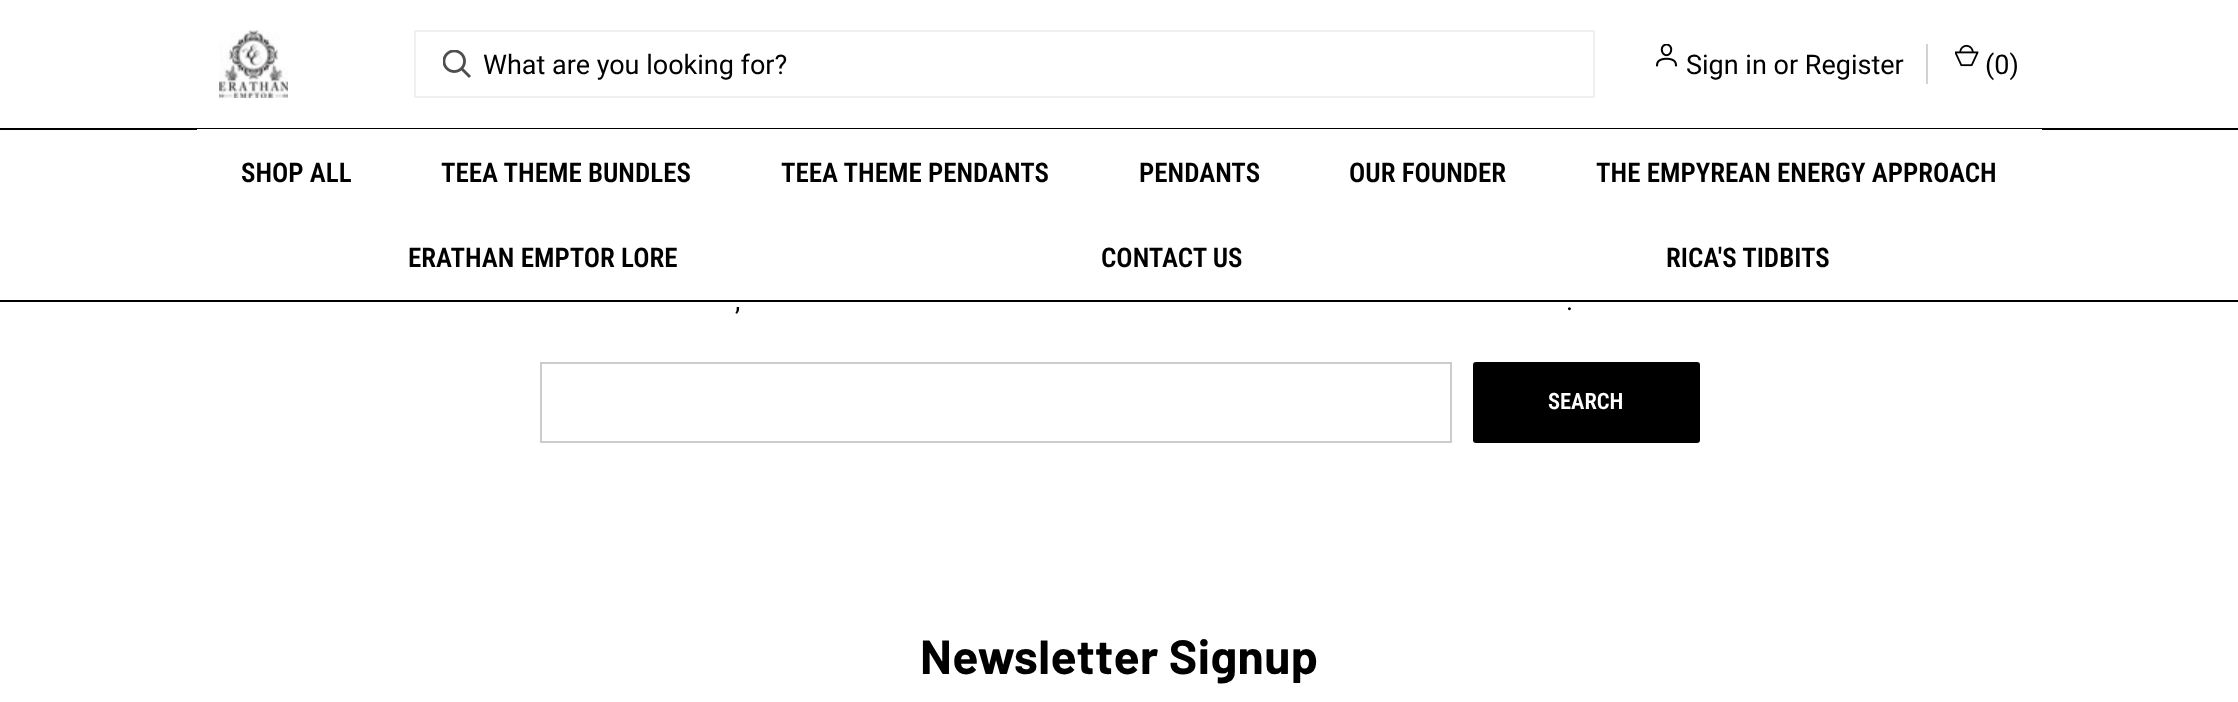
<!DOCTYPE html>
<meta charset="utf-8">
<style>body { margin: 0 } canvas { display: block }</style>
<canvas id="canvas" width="2238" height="702"></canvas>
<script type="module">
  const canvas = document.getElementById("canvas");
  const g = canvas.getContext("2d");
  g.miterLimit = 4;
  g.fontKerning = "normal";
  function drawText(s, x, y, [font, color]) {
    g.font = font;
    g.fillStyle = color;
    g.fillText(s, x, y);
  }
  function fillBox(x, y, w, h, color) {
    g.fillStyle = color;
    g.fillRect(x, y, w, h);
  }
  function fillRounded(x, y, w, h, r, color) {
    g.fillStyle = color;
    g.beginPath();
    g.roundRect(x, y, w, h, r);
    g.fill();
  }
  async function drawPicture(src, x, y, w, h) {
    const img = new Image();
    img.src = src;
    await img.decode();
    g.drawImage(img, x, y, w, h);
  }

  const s1 = ["27px Roboto", "#000000"];
  const s2 = ["600 27px Roboto Condensed", "#000000"];
  const s3 = ["600 22.5px Roboto Condensed", "#FFFFFF"];
  const s4 = ["bold 48px Barlow", "#000000"];

  fillBox(0, 0, 2238, 702, "#FFFFFF");
  await drawPicture("pic1.png", 219, 30, 69, 68);
  g.strokeStyle = "#F0F0F0";
  g.lineWidth = 2;
  g.strokeRect(415, 31, 1179, 66);
  await drawPicture("pic2.png", 443, 50, 28, 28);
  drawText("What are you looking for?", 483, 74, s1);
  await drawPicture("pic3.png", 1655, 44, 23, 23);
  drawText("Sign in or Register", 1686, 74, s1);
  fillBox(1926, 44, 2, 40, "#D2D2D2");
  await drawPicture("pic4.png", 1955, 44, 24, 23);
  drawText("(0)", 1985, 74, s1);
  fillBox(0, 128, 2238, 2, "#000000");
  fillBox(0, 300, 2238, 2, "#000000");
  fillBox(197, 129, 1845, 1, "#FFFFFF");
  drawText("SHOP ALL", 241, 182, s2);
  drawText("TEEA THEME BUNDLES", 441, 182, s2);
  drawText("TEEA THEME PENDANTS", 781, 182, s2);
  drawText("PENDANTS", 1139, 182, s2);
  drawText("OUR FOUNDER", 1349, 182, s2);
  drawText("THE EMPYREAN ENERGY APPROACH", 1596, 182, s2);
  drawText("ERATHAN EMPTOR LORE", 408, 267, s2);
  drawText("CONTACT US", 1101, 267, s2);
  drawText("RICA'S TIDBITS", 1666, 267, s2);
  drawText(",", 735, 310, s1);
  drawText(".", 1566, 310, s1);
  g.strokeStyle = "#CCCCCC";
  g.strokeRect(541, 363, 910, 79);
  fillRounded(1473, 362, 227, 81, 3, "#000000");
  drawText("SEARCH", 1548, 409, s3);
  g.letterSpacing = "0.4px";
  drawText("Newsletter Signup", 920, 674, s4);
</script>
